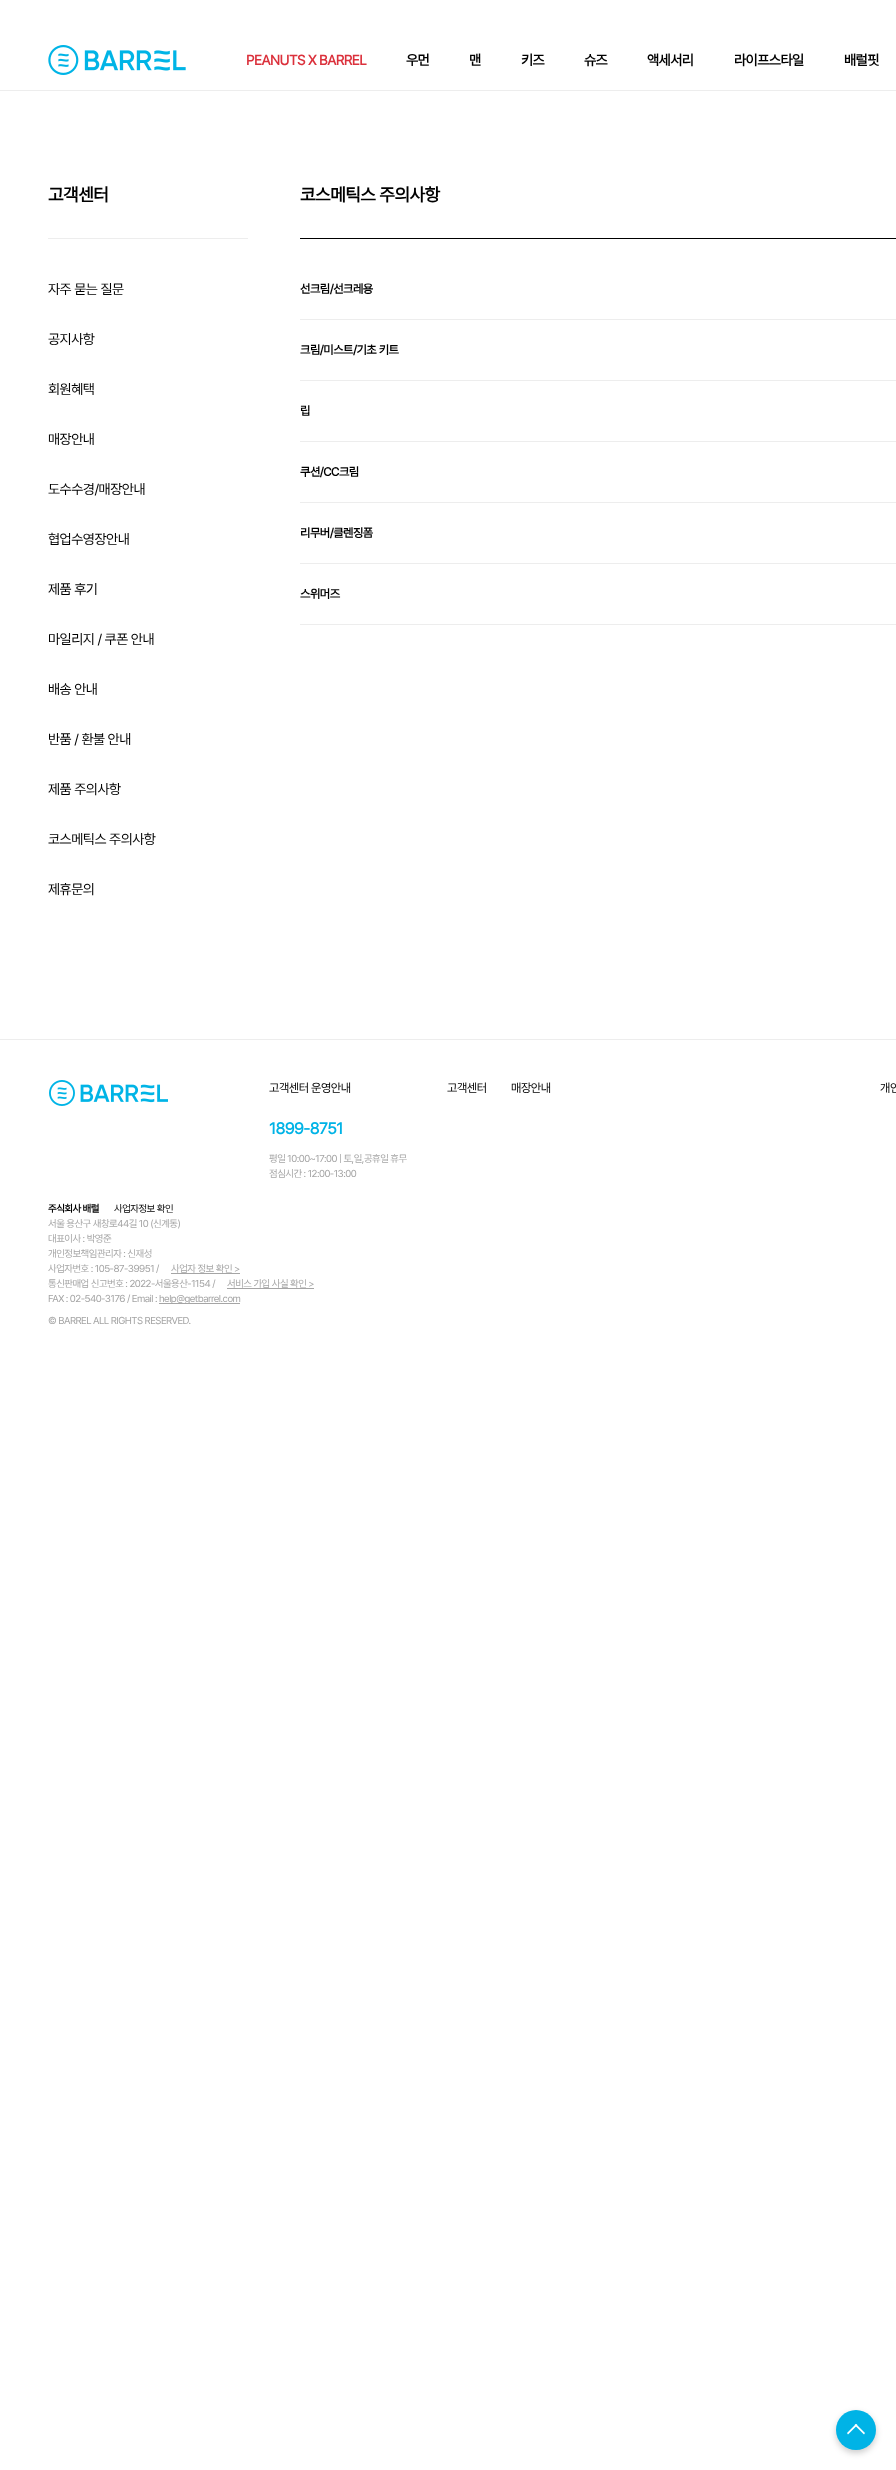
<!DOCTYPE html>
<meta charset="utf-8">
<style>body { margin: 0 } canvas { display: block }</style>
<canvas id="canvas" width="896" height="2470"></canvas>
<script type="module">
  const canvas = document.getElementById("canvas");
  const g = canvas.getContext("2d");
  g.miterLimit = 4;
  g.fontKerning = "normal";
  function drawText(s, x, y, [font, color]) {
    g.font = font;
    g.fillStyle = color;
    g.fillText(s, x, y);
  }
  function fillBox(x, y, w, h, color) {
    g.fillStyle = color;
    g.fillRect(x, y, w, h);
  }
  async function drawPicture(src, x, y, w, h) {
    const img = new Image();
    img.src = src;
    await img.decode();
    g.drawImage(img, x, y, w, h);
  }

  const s1 = ["bold 14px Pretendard", "#DB313C"];
  const s2 = ["bold 14px Pretendard", "#000000"];
  const s3 = ["bold 18px Pretendard", "#000000"];
  const s4 = ["14px Pretendard", "#000000"];
  const s5 = ["bold 12px Pretendard", "#000000"];
  const s6 = ["12px Pretendard", "#000000"];
  const s7 = ["bold 16px Pretendard", "#00B3E6"];
  const s8 = ["10px Pretendard", "#A5A5A5"];
  const s9 = ["bold 10px Pretendard", "#000000"];
  const s10 = ["10px Pretendard", "#000000"];

  fillBox(0, 0, 896, 2470, "#FFFFFF");
  fillBox(0, 90, 896, 1, "#EDEDED");
  await drawPicture("pic1.png", 48, 45, 138, 30);
  g.letterSpacing = "-0.5px";
  drawText("PEANUTS X BARREL", 246, 65, s1);
  drawText("우먼", 406, 65, s2);
  drawText("맨", 469, 65, s2);
  drawText("키즈", 521, 65, s2);
  drawText("슈즈", 584, 65, s2);
  drawText("액세서리", 647, 65, s2);
  drawText("라이프스타일", 734, 65, s2);
  drawText("배럴핏", 844, 65, s2);
  fillBox(48, 238, 200, 1, "#EDEDED");
  drawText("고객센터", 48, 201, s3);
  drawText("자주 묻는 질문", 48, 294, s4);
  drawText("공지사항", 48, 344, s4);
  drawText("회원혜택", 48, 394, s4);
  drawText("매장안내", 48, 444, s4);
  drawText("도수수경/매장안내", 48, 494, s4);
  drawText("협업수영장안내", 48, 544, s4);
  drawText("제품 후기", 48, 594, s4);
  drawText("마일리지 / 쿠폰 안내", 48, 644, s4);
  drawText("배송 안내", 48, 694, s4);
  drawText("반품 / 환불 안내", 48, 744, s4);
  drawText("제품 주의사항", 48, 794, s4);
  drawText("코스메틱스 주의사항", 48, 844, s4);
  drawText("제휴문의", 48, 894, s4);
  fillBox(300, 238, 596, 1, "#000000");
  drawText("코스메틱스 주의사항", 300, 201, s3);
  fillBox(300, 319, 596, 1, "#EDEDED");
  drawText("선크림/선크레용", 300, 293, s5);
  fillBox(300, 380, 596, 1, "#EDEDED");
  drawText("크림/미스트/기초 키트", 300, 354, s5);
  fillBox(300, 441, 596, 1, "#EDEDED");
  drawText("립", 300, 415, s5);
  fillBox(300, 502, 596, 1, "#EDEDED");
  drawText("쿠션/CC크림", 300, 476, s5);
  fillBox(300, 563, 596, 1, "#EDEDED");
  drawText("리무버/클렌징폼", 300, 537, s5);
  fillBox(300, 624, 596, 1, "#EDEDED");
  drawText("스위머즈", 300, 598, s5);
  fillBox(0, 1039, 896, 1, "#EDEDED");
  await drawPicture("pic2.png", 49, 1080, 119, 26);
  drawText("고객센터 운영안내", 269, 1092, s6);
  drawText("1899-8751", 269, 1134, s7);
  drawText("평일 10:00~17:00 | 토,일,공휴일 휴무", 269, 1162, s8);
  drawText("점심시간 : 12:00-13:00", 269, 1177, s8);
  drawText("고객센터", 447, 1092, s6);
  drawText("매장안내", 511, 1092, s6);
  drawText("개인", 880, 1092, s6);
  drawText("주식회사 배럴", 48, 1212, s9);
  drawText("사업자정보 확인", 114, 1212, s10);
  drawText("서울 용산구 새창로44길 10 (신계동)", 48, 1227, s8);
  drawText("대표이사 : 박영준", 48, 1242, s8);
  drawText("개인정보책임관리자 : 신재성", 48, 1257, s8);
  drawText("사업자번호 : 105-87-39951 /", 48, 1272, s8);
  drawText("사업자 정보 확인 >", 171, 1272, s8);
  fillBox(171, 1273, 69, 1, "#A5A5A5");
  drawText("통신판매업 신고번호 : 2022-서울용산-1154 /", 48, 1287, s8);
  drawText("서비스 가입 사실 확인 >", 227, 1287, s8);
  fillBox(227, 1288, 87, 1, "#A5A5A5");
  drawText("FAX : 02-540-3176 / Email :", 48, 1302, s8);
  fillBox(159, 1303, 81, 1, "#A5A5A5");
  drawText("help@getbarrel.com", 159, 1302, s8);
  drawText("© BARREL ALL RIGHTS RESERVED.", 48, 1324, s8);
  g.fillStyle = "rgba(0, 0, 0, 0.2)";
  g.filter = "blur(3px)";
  g.beginPath();
  g.roundRect(836, 2413, 40, 40, 20);
  g.fill();
  g.filter = "none";
  g.fillStyle = "#00B3E6";
  g.beginPath();
  g.arc(856, 2430, 20, 0, Math.PI * 2);
  g.fill();
  g.fillStyle = "#FFFFFF";
  g.beginPath();
  g.moveTo(856, 2424);
  g.lineTo(865, 2433);
  g.lineTo(864, 2434.5);
  g.lineTo(854.5, 2425);
  g.closePath();
  g.fill();
  g.beginPath();
  g.moveTo(856, 2424);
  g.lineTo(857.5, 2425);
  g.lineTo(848, 2434.5);
  g.lineTo(847, 2433);
  g.closePath();
  g.fill();
</script>
